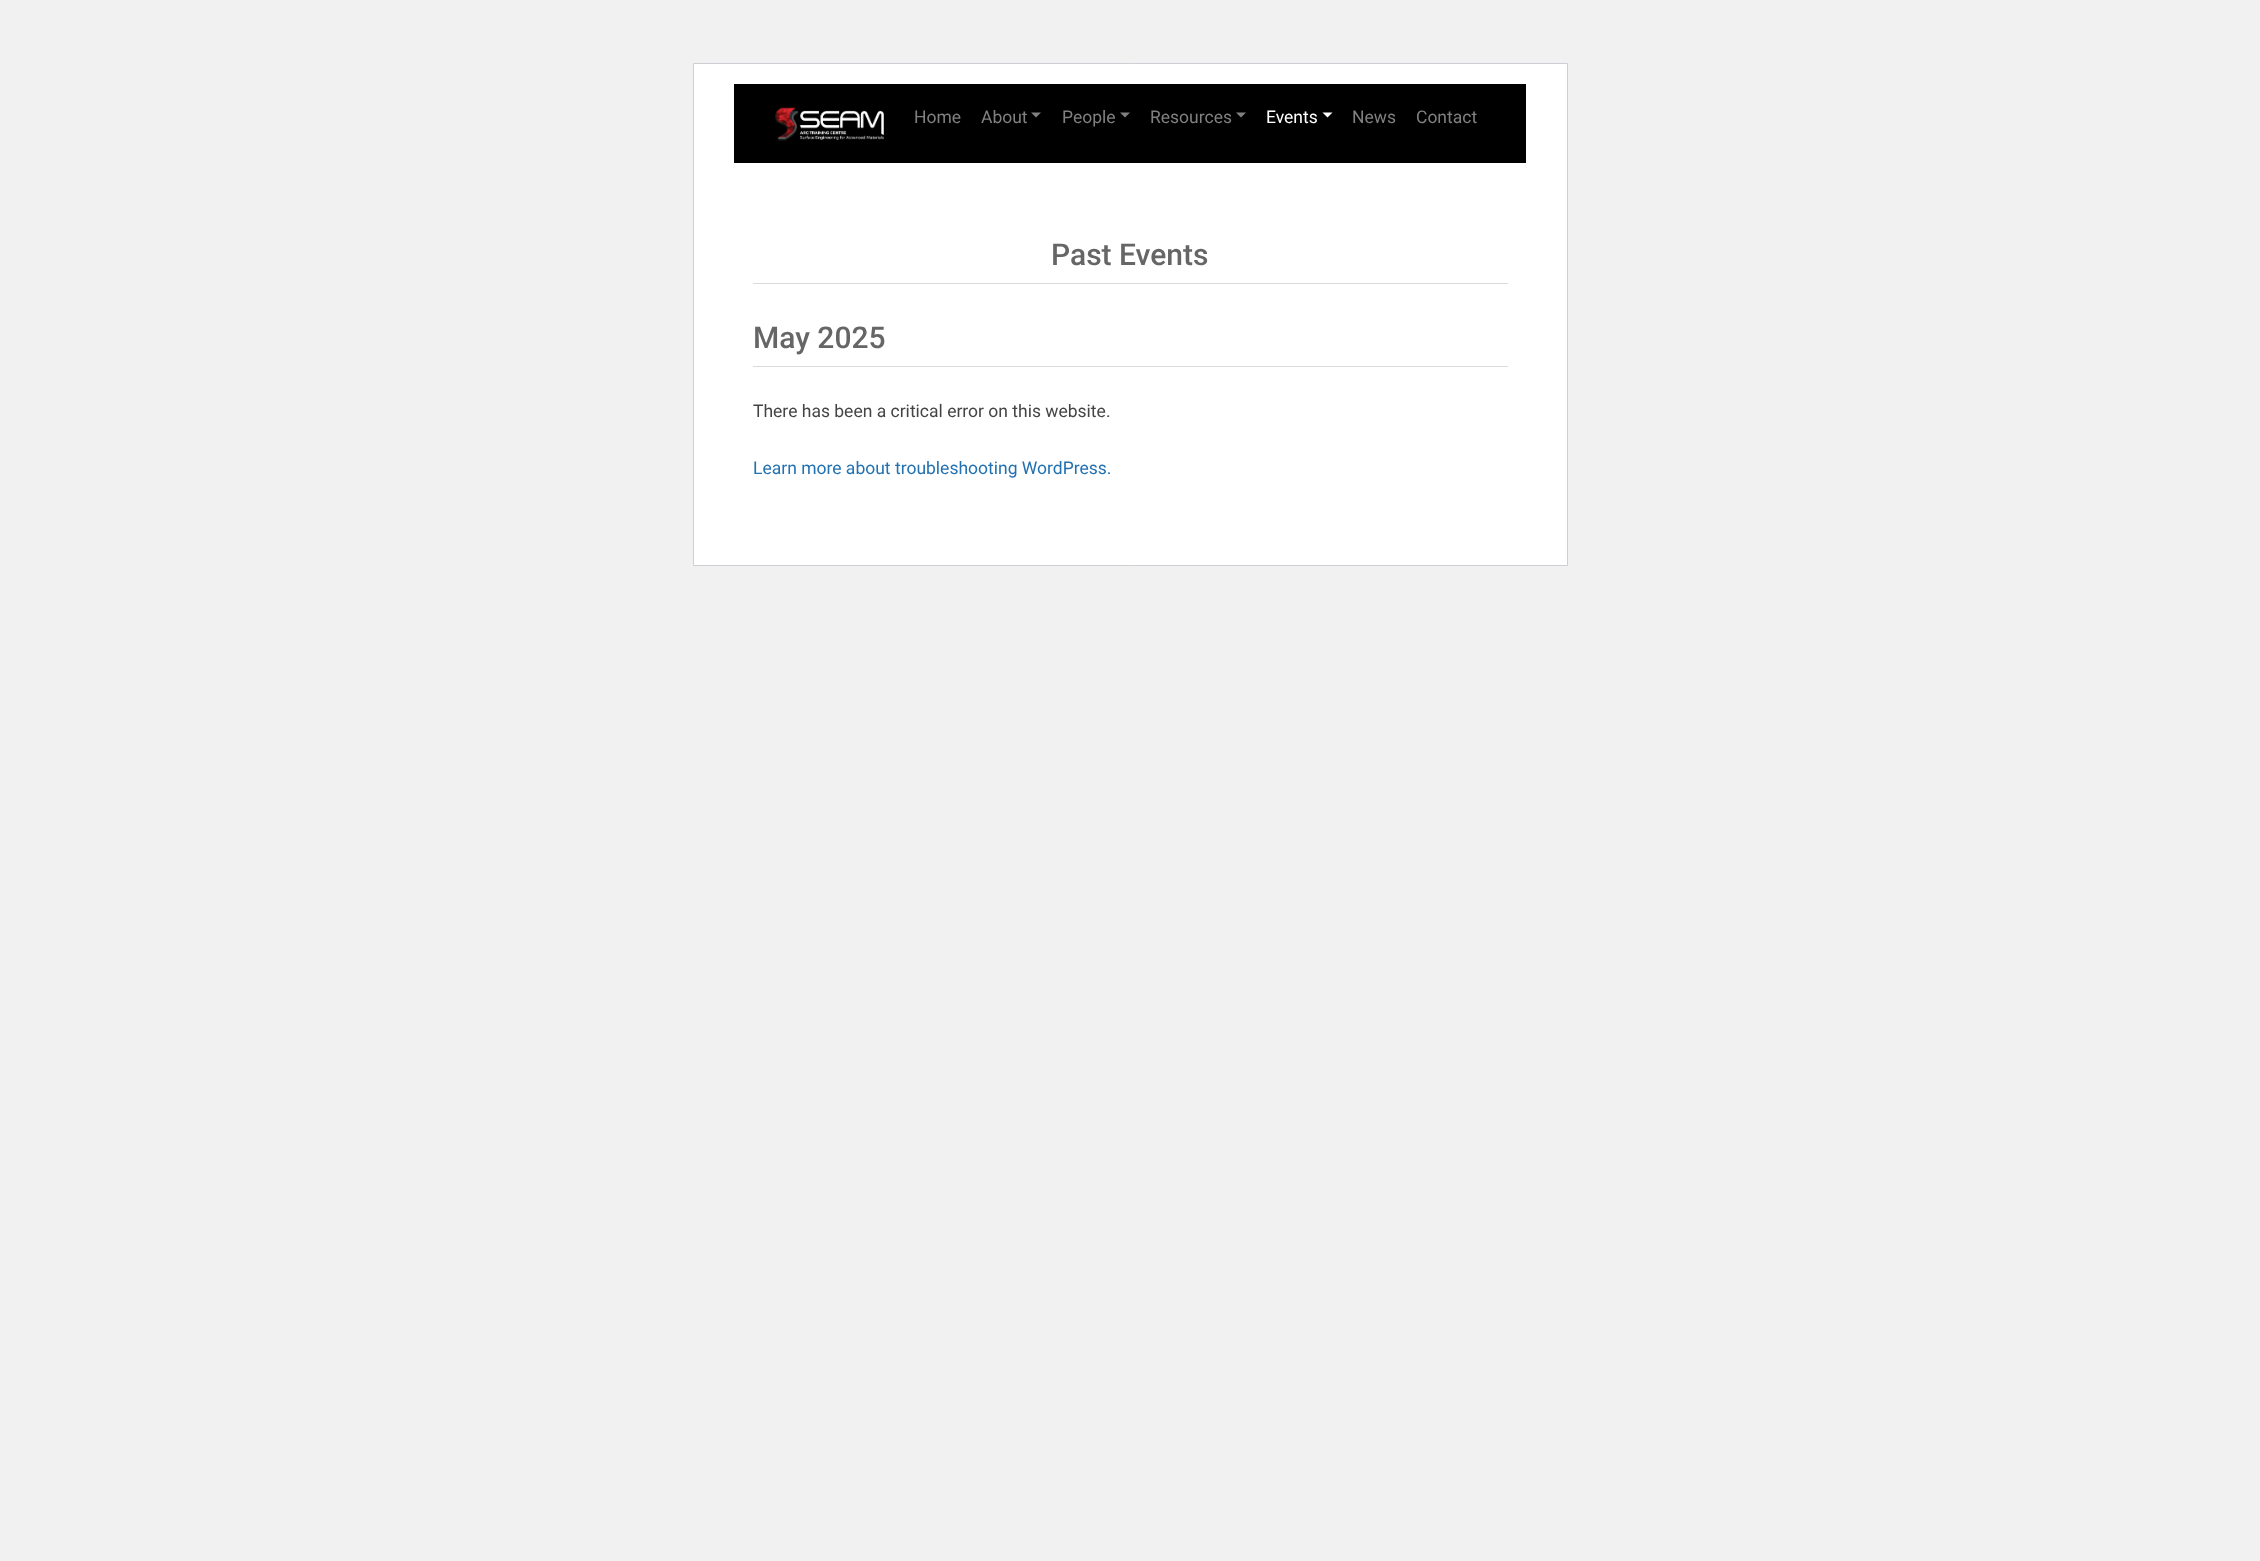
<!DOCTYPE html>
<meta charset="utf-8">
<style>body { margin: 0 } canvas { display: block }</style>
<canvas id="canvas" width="2260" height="1561"></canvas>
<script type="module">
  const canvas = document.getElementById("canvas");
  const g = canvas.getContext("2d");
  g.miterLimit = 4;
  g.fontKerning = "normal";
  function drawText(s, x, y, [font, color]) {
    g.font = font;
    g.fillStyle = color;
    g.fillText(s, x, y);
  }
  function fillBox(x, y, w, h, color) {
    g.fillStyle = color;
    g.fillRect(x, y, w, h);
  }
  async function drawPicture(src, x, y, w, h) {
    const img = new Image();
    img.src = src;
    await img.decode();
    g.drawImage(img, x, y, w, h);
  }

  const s1 = ["17.5px Roboto", "#808080"];
  const s2 = ["17.5px Roboto", "#FFFFFF"];
  const s3 = ["500 30px Roboto", "#666666"];
  const s4 = ["17.5px Roboto", "#444444"];
  const s5 = ["17.5px Roboto", "#2271B1"];

  fillBox(0, 0, 2260, 1561, "#F1F1F1");
  g.fillStyle = "#FFFFFF";
  g.beginPath();
  g.rect(693.5, 63.5, 874, 502);
  g.fill();
  g.strokeStyle = "#CCD0D4";
  g.stroke();
  fillBox(734, 84, 792, 79, "#000000");
  await drawPicture("pic1.png", 775, 107, 109, 34);
  drawText("Home", 914, 123, s1);
  drawText("About", 981, 123, s1);
  g.beginPath();
  g.moveTo(1031, 112.5);
  g.lineTo(1041, 112.5);
  g.lineTo(1036, 117.5);
  g.closePath();
  g.fill();
  drawText("People", 1062, 123, s1);
  g.beginPath();
  g.moveTo(1120, 112.5);
  g.lineTo(1130, 112.5);
  g.lineTo(1125, 117.5);
  g.closePath();
  g.fill();
  drawText("Resources", 1150, 123, s1);
  g.beginPath();
  g.moveTo(1236, 112.5);
  g.lineTo(1246, 112.5);
  g.lineTo(1241, 117.5);
  g.closePath();
  g.fill();
  drawText("Events", 1266, 123, s2);
  g.beginPath();
  g.moveTo(1322.5, 112.5);
  g.lineTo(1332.5, 112.5);
  g.lineTo(1327.5, 117.5);
  g.closePath();
  g.fill();
  drawText("News", 1352, 123, s1);
  drawText("Contact", 1416, 123, s1);
  fillBox(753, 283, 755, 1, "#DADADA");
  drawText("Past Events", 1051, 265, s3);
  fillBox(753, 366, 755, 1, "#DADADA");
  drawText("May 2025", 753, 348, s3);
  drawText("There has been a critical error on this website.", 753, 417, s4);
  drawText("Learn more about troubleshooting WordPress.", 753, 474, s5);
</script>
